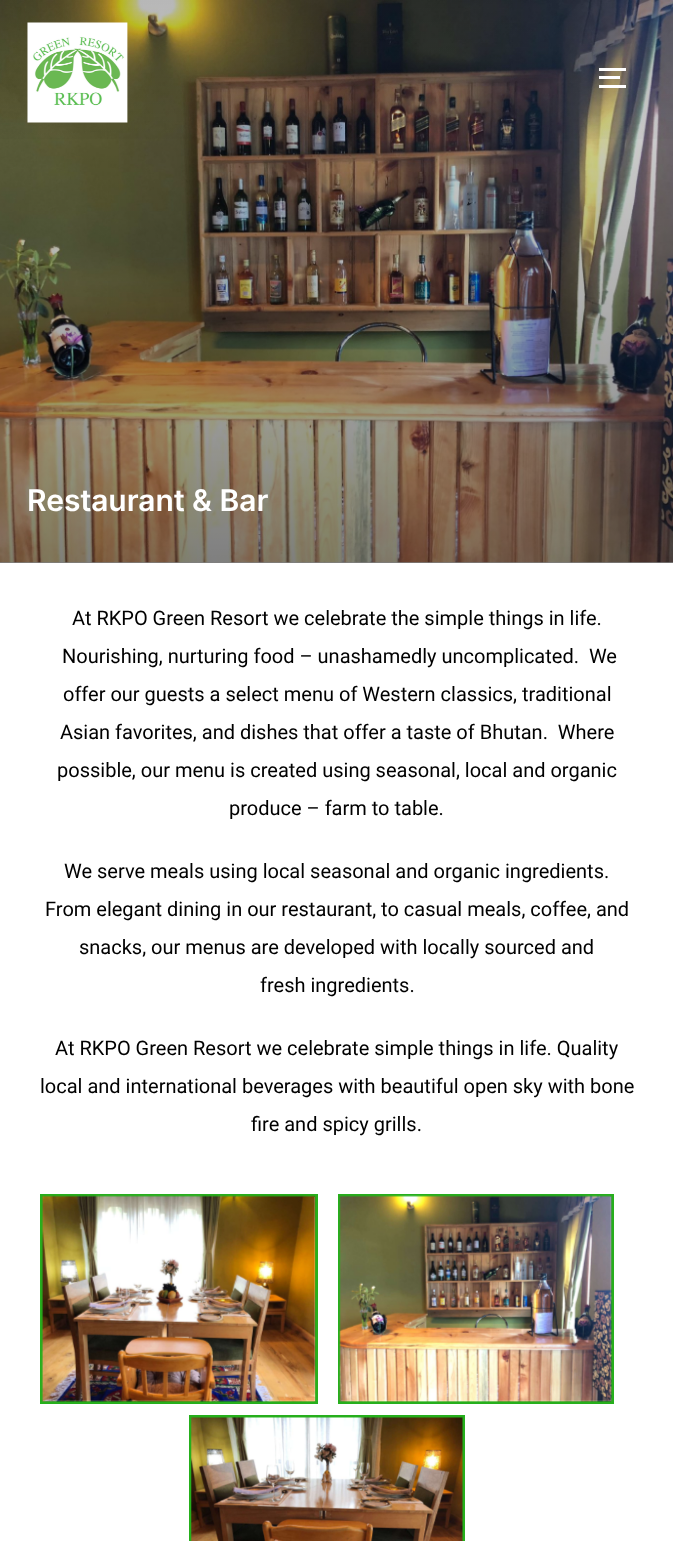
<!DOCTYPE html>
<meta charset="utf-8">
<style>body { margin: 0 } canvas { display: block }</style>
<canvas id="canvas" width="673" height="1541"></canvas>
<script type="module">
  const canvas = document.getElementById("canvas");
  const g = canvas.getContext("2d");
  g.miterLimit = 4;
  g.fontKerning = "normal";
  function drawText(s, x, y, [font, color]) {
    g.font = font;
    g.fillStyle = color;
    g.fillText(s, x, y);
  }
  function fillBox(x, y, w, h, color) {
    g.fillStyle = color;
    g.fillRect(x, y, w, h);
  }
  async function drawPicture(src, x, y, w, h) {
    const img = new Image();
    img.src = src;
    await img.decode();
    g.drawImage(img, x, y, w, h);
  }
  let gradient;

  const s1 = ["600 30px Inter", "#FFFFFF"];
  const s2 = ["20px Roboto", "#000000"];

  fillBox(0, 0, 673, 1541, "#FFFFFF");
  await drawPicture("pic2.png", 0, 0, 673, 563);
  gradient = g.createLinearGradient(337, 0, 337, 563);
  gradient.addColorStop(0, "rgba(0, 0, 0, 0.1)");
  gradient.addColorStop(1, "rgba(0, 0, 0, 0.5)");
  g.fillStyle = gradient;
  g.fillRect(0, 0, 673, 563);
  gradient = g.createLinearGradient(337, 0, 337, 156);
  gradient.addColorStop(0.01, "rgba(0, 0, 0, 0.2)");
  gradient.addColorStop(1, "rgba(0, 0, 0, 0)");
  g.fillStyle = gradient;
  g.fillRect(0, 0, 673, 139);
  await drawPicture("pic1.png", 27, 22, 101, 101);
  fillBox(599, 68, 27, 3, "#FFFFFF");
  fillBox(599, 76, 21, 3, "#FFFFFF");
  fillBox(599, 85, 27, 3, "#FFFFFF");
  drawText("Restaurant & Bar", 27, 511, s1);
  drawText("At RKPO Green Resort we celebrate the simple things in life.", 72, 625, s2);
  drawText("Nourishing, nurturing food – unashamedly uncomplicated.  We", 62, 663, s2);
  drawText("offer our guests a select menu of Western classics, traditional", 63, 701, s2);
  drawText("Asian favorites, and dishes that offer a taste of Bhutan.  Where", 60, 739, s2);
  drawText("possible, our menu is created using seasonal, local and organic", 57, 777, s2);
  drawText("produce – farm to table.", 229, 815, s2);
  drawText("We serve meals using local seasonal and organic ingredients.", 64, 878, s2);
  drawText("From elegant dining in our restaurant, to casual meals, coffee, and", 45, 916, s2);
  drawText("snacks, our menus are developed with locally sourced and", 79, 954, s2);
  drawText("fresh ingredients.", 260, 992, s2);
  drawText("At RKPO Green Resort we celebrate simple things in life. Quality", 55, 1055, s2);
  drawText("local and international beverages with beautiful open sky with bone", 40, 1093, s2);
  drawText("fire and spicy grills.", 251, 1131, s2);
  g.strokeStyle = "#26AF1C";
  g.lineWidth = 3;
  g.strokeRect(41.5, 1195.5, 275, 207);
  await drawPicture("pic3.png", 41, 1195, 275, 207);
  g.strokeRect(339.5, 1195.5, 273, 207);
  await drawPicture("pic4.png", 339, 1195, 273, 207);
  g.strokeRect(190.5, 1416.5, 273, 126);
  await drawPicture("pic5.png", 191, 1417, 272, 124);
</script>
